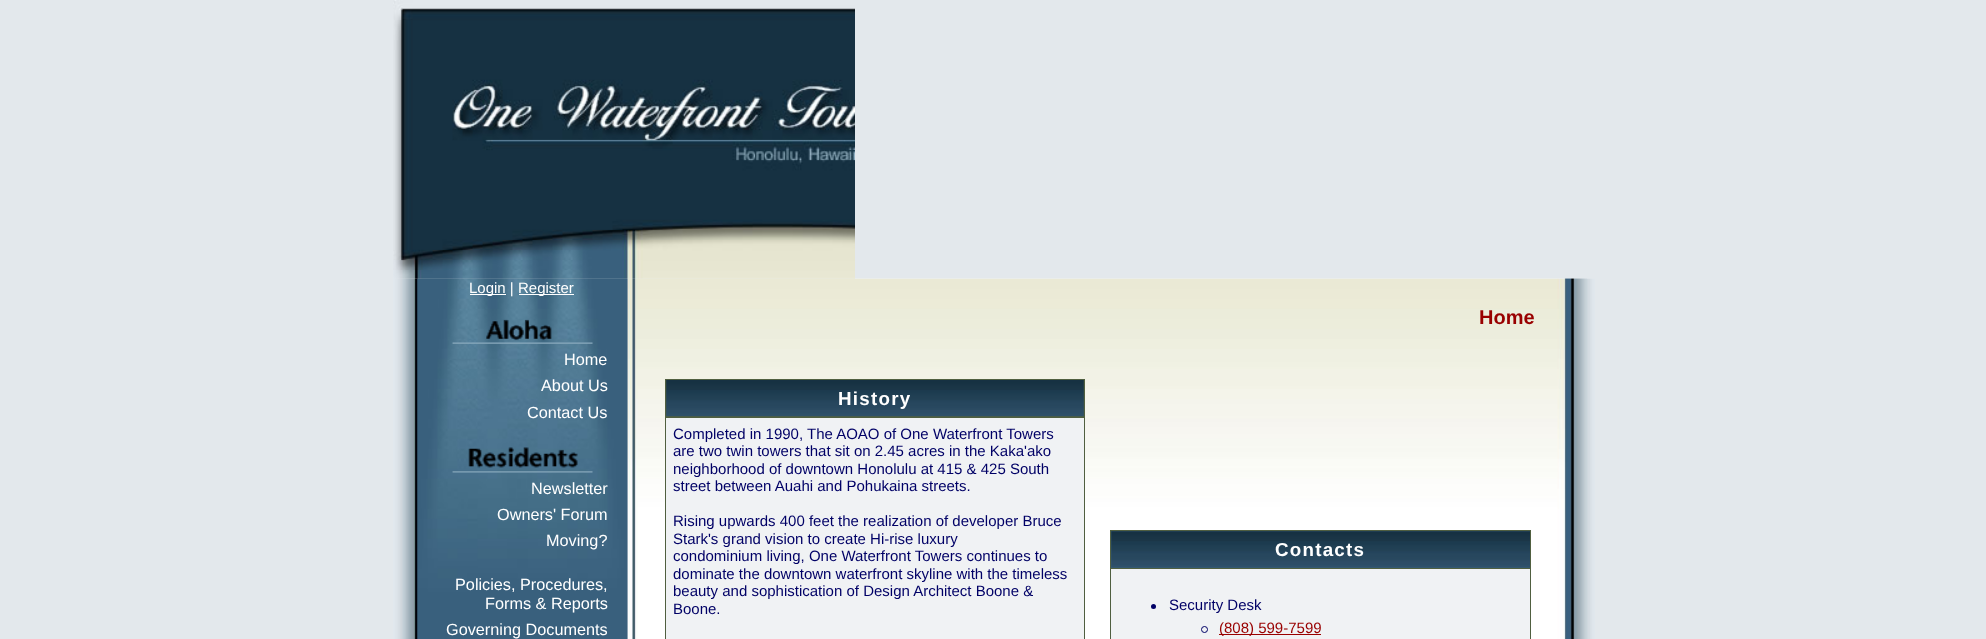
<!DOCTYPE html>
<meta charset="utf-8">
<style>body { margin: 0 } canvas { display: block }</style>
<canvas id="canvas" width="1986" height="639"></canvas>
<script type="module">
  const canvas = document.getElementById("canvas");
  const g = canvas.getContext("2d");
  g.miterLimit = 4;
  g.fontKerning = "normal";
  function drawText(s, x, y, [font, color]) {
    g.font = font;
    g.fillStyle = color;
    g.fillText(s, x, y);
  }
  function fillBox(x, y, w, h, color) {
    g.fillStyle = color;
    g.fillRect(x, y, w, h);
  }
  async function drawPicture(src, x, y, w, h) {
    const img = new Image();
    img.src = src;
    await img.decode();
    g.drawImage(img, x, y, w, h);
  }

  const s1 = ["15px Liberation Sans", "#FFFFFF"];
  const s2 = ["16.25px Liberation Sans", "#FFFFFF"];
  const s3 = ["bold 20px Liberation Sans", "#990000"];
  const s4 = ["bold 18.75px Liberation Sans", "#FFFFFF"];
  const s5 = ["15px Liberation Sans", "#000066"];
  const s6 = ["15px Liberation Sans", "#990000"];

  fillBox(0, 0, 1986, 639, "#E3E8EC");
  await drawPicture("pic2.png", 393, 278, 235, 361);
  await drawPicture("pic6.png", 627, 278, 968, 361);
  await drawPicture("pic7.png", 627, 278, 960, 361);
  await drawPicture("pic3.png", 417, 278, 211, 361);
  await drawPicture("pic1.png", 393, 0, 462, 279);
  fillBox(470, 294, 36, 1, "#FFFFFF");
  drawText("Login |", 469, 293, s1);
  fillBox(519, 294, 55, 1, "#FFFFFF");
  drawText("Register", 518, 293, s1);
  await drawPicture("pic4.png", 452, 319, 141, 25);
  drawText("Home", 564, 365, s2);
  drawText("About Us", 541, 391, s2);
  drawText("Contact Us", 527, 418, s2);
  await drawPicture("pic5.png", 452, 447, 141, 26);
  drawText("Newsletter", 531, 494, s2);
  drawText("Owners' Forum", 497, 520, s2);
  drawText("Moving?", 546, 546, s2);
  drawText("Policies, Procedures,", 455, 590, s2);
  drawText("Forms & Reports", 485, 609, s2);
  drawText("Governing Documents", 446, 635, s2);
  drawText("Home", 1479, 324, s3);
  fillBox(665, 379, 420, 260, "#505F40");
  await drawPicture("pic8.png", 666, 380, 418, 37);
  g.letterSpacing = "1.25px";
  drawText("History", 838, 405, s4);
  fillBox(666, 418, 418, 221, "#F0F2F4");
  g.letterSpacing = "0px";
  drawText("Completed in 1990, The AOAO of One Waterfront Towers", 673, 439, s5);
  drawText("are two twin towers that sit on 2.45 acres in the Kaka'ako", 673, 456, s5);
  drawText("neighborhood of downtown Honolulu at 415 & 425 South", 673, 474, s5);
  drawText("street between Auahi and Pohukaina streets.", 673, 491, s5);
  drawText("Rising upwards 400 feet the realization of developer Bruce", 673, 526, s5);
  drawText("Stark's grand vision to create Hi-rise luxury", 673, 544, s5);
  drawText("condominium living, One Waterfront Towers continues to", 673, 561, s5);
  drawText("dominate the downtown waterfront skyline with the timeless", 673, 579, s5);
  drawText("beauty and sophistication of Design Architect Boone &", 673, 596, s5);
  drawText("Boone.", 673, 614, s5);
  fillBox(1110, 530, 421, 109, "#505F40");
  fillBox(1111, 531, 419, 37, "#39607D");
  await drawPicture("pic9.png", 1111, 531, 419, 37);
  g.letterSpacing = "1.25px";
  drawText("Contacts", 1275, 556, s4);
  fillBox(1111, 569, 419, 70, "#F0F2F4");
  g.fillStyle = "#000066";
  g.beginPath();
  g.arc(1153.5, 606.5, 2.5, 0, Math.PI * 2);
  g.fill();
  g.letterSpacing = "0px";
  drawText("Security Desk", 1169, 610, s5);
  g.beginPath();
  g.arc(1204.5, 629.5, 3, 0, Math.PI * 2);
  g.strokeStyle = "#000066";
  g.stroke();
  fillBox(1219, 634, 102, 1, "#990000");
  drawText("(808) 599-7599", 1219, 633, s6);
</script>
